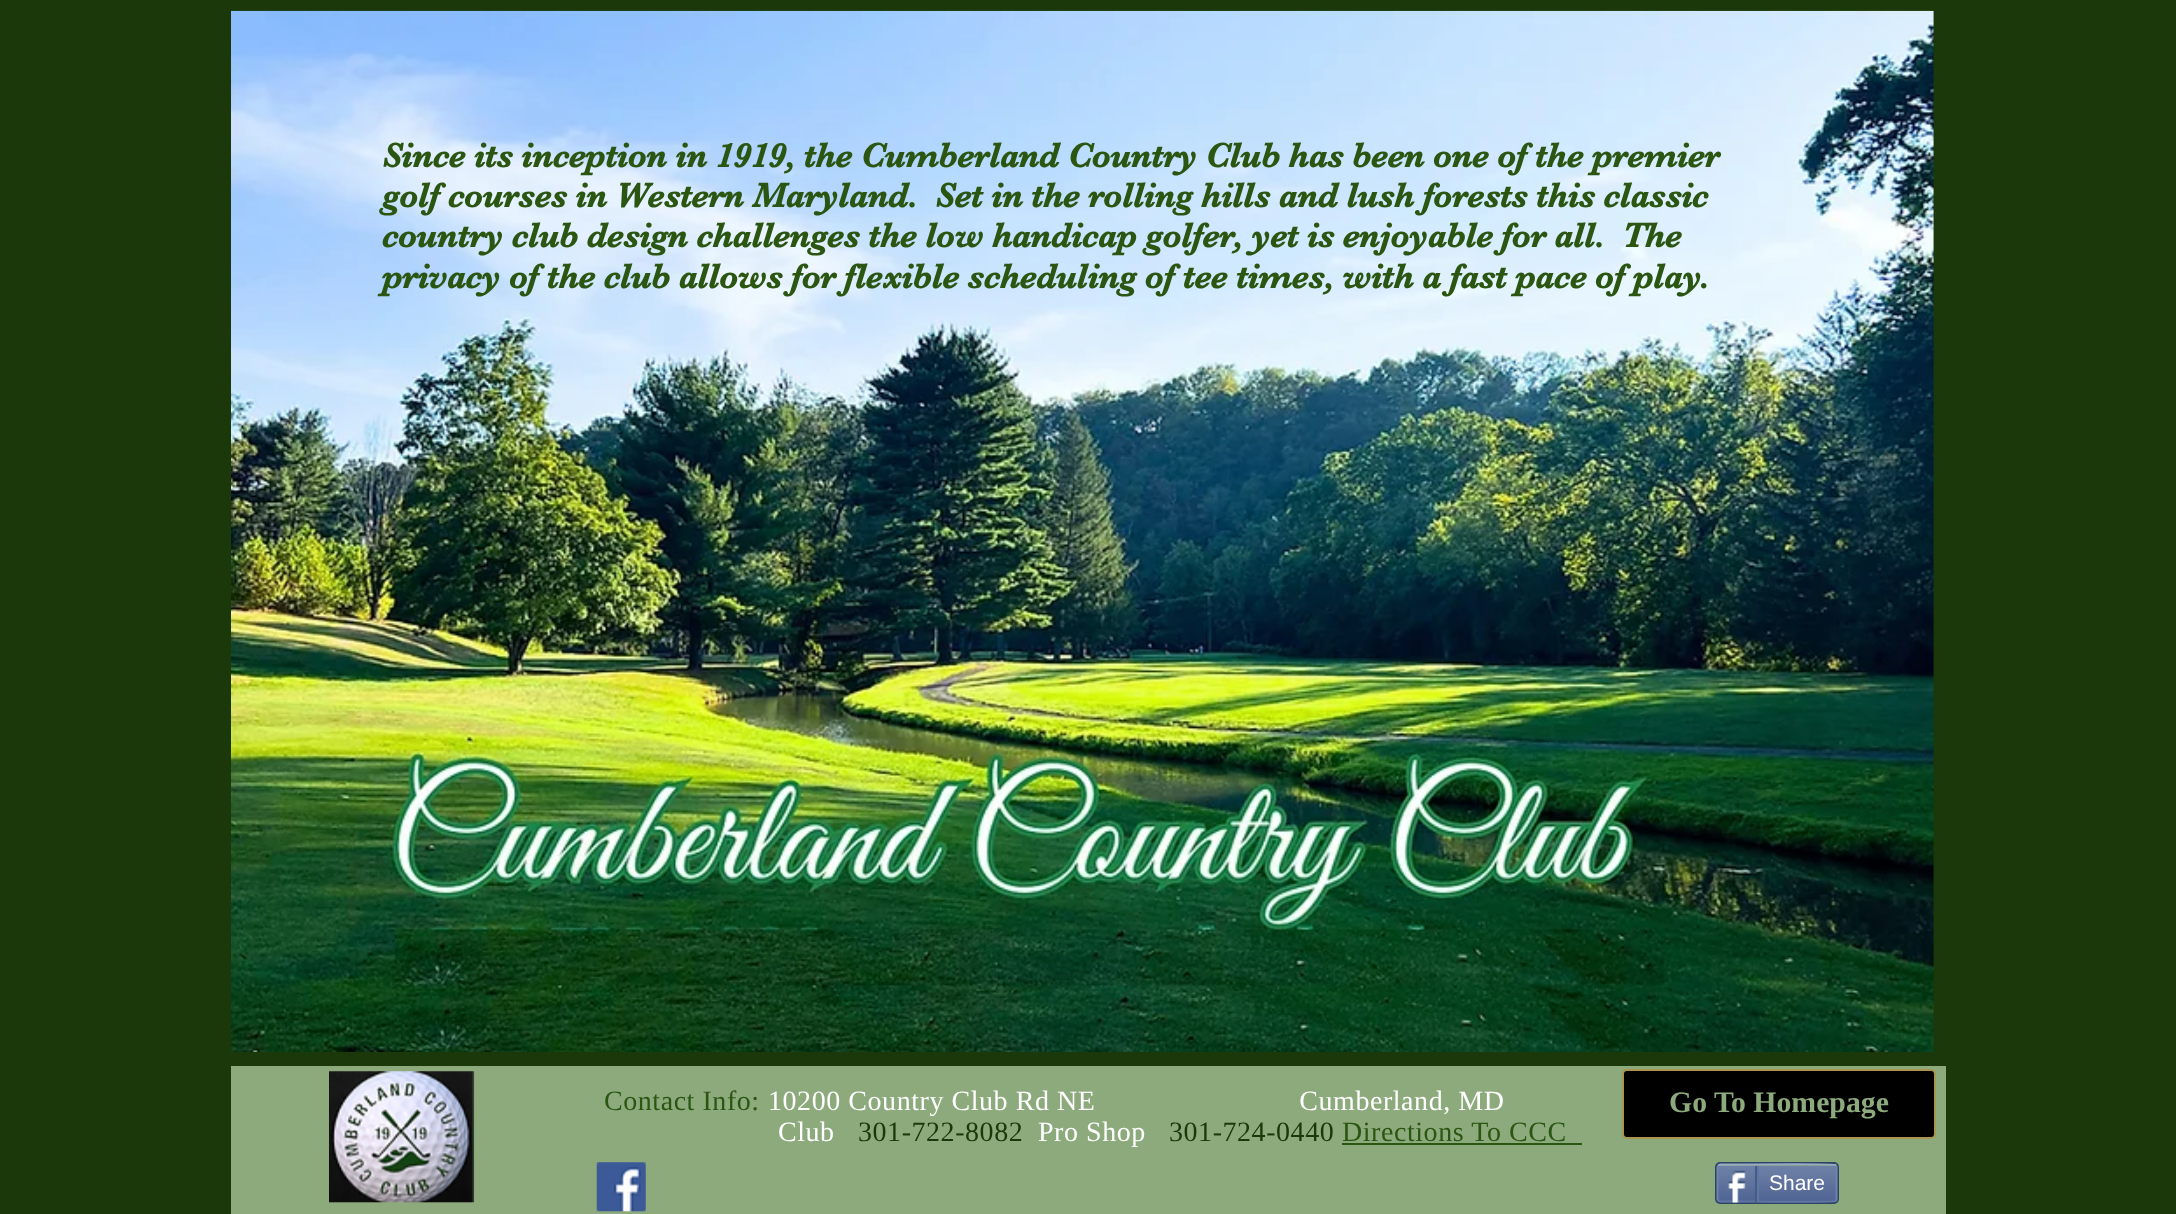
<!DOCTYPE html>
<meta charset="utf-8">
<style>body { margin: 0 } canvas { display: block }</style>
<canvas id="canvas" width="2176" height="1214"></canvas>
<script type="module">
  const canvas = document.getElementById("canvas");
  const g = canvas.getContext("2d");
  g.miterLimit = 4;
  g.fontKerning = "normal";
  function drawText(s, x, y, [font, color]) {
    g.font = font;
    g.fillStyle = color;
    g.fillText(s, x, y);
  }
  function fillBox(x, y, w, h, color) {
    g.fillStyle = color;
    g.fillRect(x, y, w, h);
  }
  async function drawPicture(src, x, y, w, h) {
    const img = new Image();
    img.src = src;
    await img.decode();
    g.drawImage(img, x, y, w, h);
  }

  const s1 = ["bold 35px 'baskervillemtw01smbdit'", "#2A5612"];
  const s2 = ["28px Liberation Serif", "#2A5612"];
  const s3 = ["28px Liberation Serif", "#FFFFFF"];
  const s4 = ["28px Liberation Serif", "#1A380A"];
  const s5 = ["bold 29.75px Liberation Serif", "#8DAA7D"];
  const s6 = ["21px Liberation Sans", "#FFFFFF"];

  fillBox(0, 0, 2176, 1214, "#1A380A");
  await drawPicture("pic1.png", 231, 10, 1703, 1042);
  drawText("Since its inception in 1919, the Cumberland Country Club has been one of the premier", 382, 167, s1);
  drawText("golf courses in Western Maryland.  Set in the rolling hills and lush forests this classic", 382, 207, s1);
  drawText("country club design challenges the low handicap golfer, yet is enjoyable for all.  The", 382, 247, s1);
  drawText("privacy of the club allows for flexible scheduling of tee times, with a fast pace of play.", 382, 288, s1);
  fillBox(231, 1066, 1715, 148, "#8DAA7D");
  await drawPicture("pic2.png", 329, 1071, 146, 132);
  g.letterSpacing = "0.55px";
  drawText("Contact Info:", 604, 1110, s2);
  drawText("10200 Country Club Rd NE                           Cumberland, MD", 768, 1110, s3);
  drawText("Club", 778, 1141, s3);
  drawText("301-722-8082", 858, 1141, s4);
  drawText("Pro Shop", 1038, 1141, s3);
  drawText("301-724-0440", 1169, 1141, s4);
  drawText("Directions To CCC", 1342, 1141, s2);
  fillBox(1342, 1143, 240, 2, "#2A5612");
  g.fillStyle = "#000000";
  g.beginPath();
  g.roundRect(1623, 1070, 312, 68, 4);
  g.fill();
  g.strokeStyle = "#AA9550";
  g.lineWidth = 2;
  g.stroke();
  g.letterSpacing = "0px";
  drawText("Go To Homepage", 1669, 1112, s5);
  await drawPicture("pic3.png", 596, 1162, 50, 50);
  g.beginPath();
  g.roundRect(1716, 1163, 122, 40, 4);
  g.strokeStyle = "#2D4565";
  g.stroke();
  await drawPicture("pic4.png", 1716, 1165, 122, 38);
  g.beginPath();
  g.moveTo(1718.5, 1165.5);
  g.lineTo(1720, 1164.5);
  g.lineTo(1739, 1164.5);
  g.bezierCurveTo(1749, 1164.5, 1833.5, 1163.5, 1835.5, 1165);
  g.lineTo(1836, 1165.5);
  g.strokeStyle = "#9AABC6";
  g.lineWidth = 1.8;
  g.stroke();
  g.beginPath();
  g.moveTo(1836, 1165.5);
  g.bezierCurveTo(1836.5, 1166, 1836.5, 1166.5, 1836.5, 1167);
  g.lineTo(1836.5, 1199);
  g.bezierCurveTo(1836.5, 1199.5, 1836.5, 1200, 1836, 1200.5);
  g.strokeStyle = "#6F83AD";
  g.stroke();
  g.beginPath();
  g.moveTo(1836, 1200.5);
  g.lineTo(1835.5, 1201);
  g.bezierCurveTo(1833.5, 1202.5, 1749, 1201.5, 1739, 1201.5);
  g.lineTo(1720, 1201.5);
  g.lineTo(1718.5, 1200.5);
  g.strokeStyle = "#6176A3";
  g.stroke();
  g.beginPath();
  g.moveTo(1718.5, 1200.5);
  g.bezierCurveTo(1718, 1200, 1717.5, 1199.5, 1717.5, 1199);
  g.lineTo(1717.5, 1167);
  g.bezierCurveTo(1717.5, 1166.5, 1718, 1166, 1718.5, 1165.5);
  g.strokeStyle = "#6F83AD";
  g.stroke();
  await drawPicture("pic5.png", 1727, 1170, 19, 33);
  fillBox(1755, 1166, 2, 36, "#425E85");
  drawText("Share", 1769, 1190, s6);
  fillBox(1757, 1166, 2, 35, "#6176A3");
</script>
